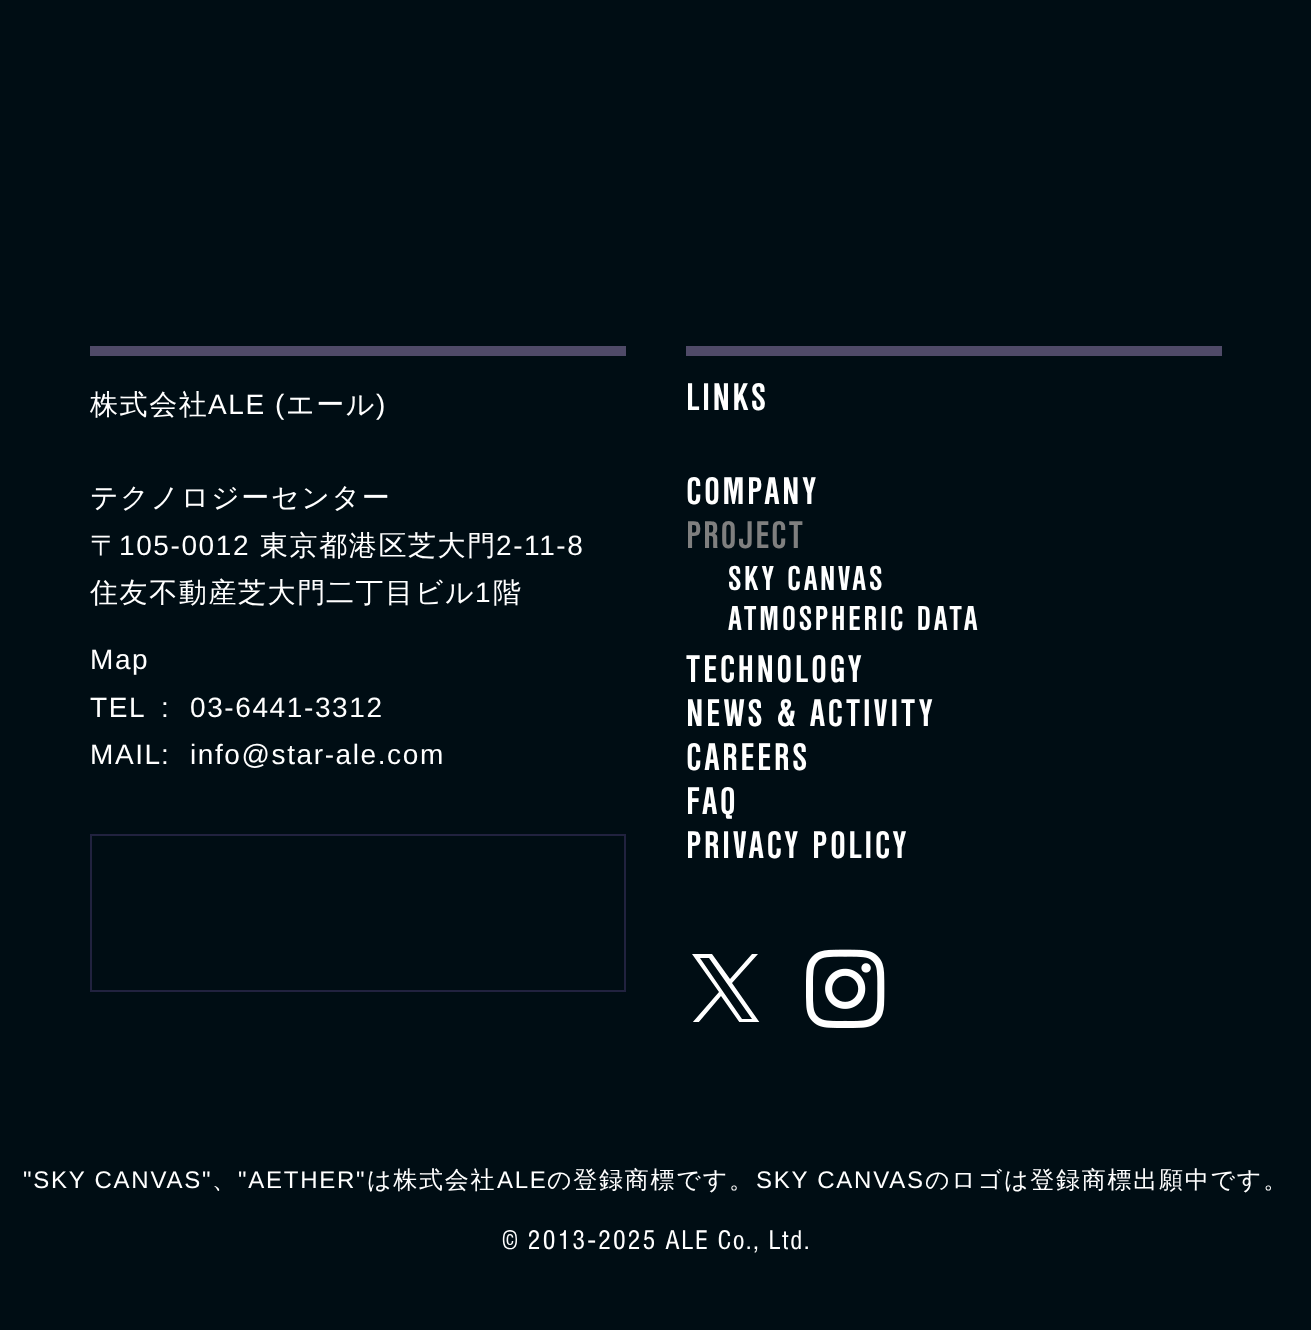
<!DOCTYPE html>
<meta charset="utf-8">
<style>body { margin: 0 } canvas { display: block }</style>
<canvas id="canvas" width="1311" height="1330"></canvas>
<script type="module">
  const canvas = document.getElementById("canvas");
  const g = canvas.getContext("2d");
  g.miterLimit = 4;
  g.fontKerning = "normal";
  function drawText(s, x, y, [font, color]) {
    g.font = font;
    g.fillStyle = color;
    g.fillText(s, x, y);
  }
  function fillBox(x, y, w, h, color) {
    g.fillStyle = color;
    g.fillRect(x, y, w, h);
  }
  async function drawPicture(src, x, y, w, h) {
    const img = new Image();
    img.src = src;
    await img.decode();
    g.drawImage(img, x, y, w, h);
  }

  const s1 = ["500 28px WenQuanYi Zen Hei", "#FFFFFF"];
  const s2 = ["28px Liberation Sans", "#FFFFFF"];
  const s3 = ["bold 40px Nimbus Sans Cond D", "#FFFFFF"];
  const s4 = ["bold 40px Nimbus Sans Cond D", "#7F7F7F"];
  const s5 = ["bold 36px Nimbus Sans Cond D", "#FFFFFF"];
  const s6 = ["24px Liberation Sans", "#FFFFFF"];
  const s7 = ["500 24px WenQuanYi Zen Hei", "#FFFFFF"];
  const s8 = ["28px Nimbus Sans Cond D", "#FFFFFF"];

  fillBox(0, 0, 1311, 1330, "#000D14");
  fillBox(90, 346, 536, 10, "#4F4A68");
  g.letterSpacing = "1.6px";
  drawText("株式会社", 90, 414, s1);
  drawText("ALE (", 208, 414, s2);
  drawText("エール", 286, 414, s1);
  drawText(")", 376, 414, s2);
  drawText("テクノロジーセンター", 90, 507, s1);
  drawText("〒", 90, 555, s1);
  drawText("105-0012", 119, 555, s2);
  drawText("東京都港区芝大門", 260, 555, s1);
  drawText("2-11-8", 496, 555, s2);
  drawText("住友不動産芝大門", 90, 602, s1);
  drawText("二丁目ビル", 326, 602, s1);
  drawText("1", 475, 602, s2);
  drawText("階", 493, 602, s1);
  drawText("Map", 90, 669, s2);
  drawText("TEL", 90, 717, s2);
  drawText(":", 161, 717, s2);
  drawText("03-6441-3312", 190, 717, s2);
  drawText("MAIL", 90, 764, s2);
  drawText(":", 161, 764, s2);
  drawText("info@star-ale.com", 190, 764, s2);
  g.strokeStyle = "#21223F";
  g.lineWidth = 2;
  g.strokeRect(91, 835, 534, 156);
  fillBox(686, 346, 536, 10, "#4F4A68");
  g.letterSpacing = "2.4px";
  drawText("LINKS", 686, 410, s3);
  drawText("COMPANY", 686, 504, s3);
  g.letterSpacing = "1.6px";
  drawText("PROJECT", 686, 548, s4);
  g.letterSpacing = "2.4px";
  drawText("SKY CANVAS", 728, 590, s5);
  drawText("ATMOSPHERIC DATA", 728, 630, s5);
  drawText("TECHNOLOGY", 686, 682, s3);
  drawText("NEWS & ACTIVITY", 686, 726, s3);
  drawText("CAREERS", 686, 770, s3);
  drawText("FAQ", 686, 814, s3);
  drawText("PRIVACY POLICY", 686, 858, s3);
  g.save();
  g.beginPath();
  g.rect(692, 954, 68, 68);
  g.clip();
  g.beginPath();
  g.moveTo(732, 983);
  g.lineTo(758, 954);
  g.lineTo(752, 954);
  g.lineTo(730, 979);
  g.lineTo(712, 954);
  g.lineTo(692, 954);
  g.lineTo(719, 992);
  g.lineTo(692, 1023);
  g.lineTo(698, 1023);
  g.lineTo(721, 996);
  g.lineTo(740, 1023);
  g.lineTo(760, 1023);
  g.closePath();
  g.moveTo(724, 993);
  g.lineTo(700, 958);
  g.lineTo(709, 958);
  g.lineTo(752, 1019);
  g.lineTo(742, 1019);
  g.closePath();
  g.fill();
  g.restore();
  await drawPicture("pic1.png", 806, 949, 79, 79);
  g.letterSpacing = "1.75px";
  drawText("\"SKY CANVAS\"", 23, 1188, s6);
  drawText("、", 212, 1188, s7);
  drawText("\"AETHER\"", 238, 1188, s6);
  drawText("は株式会社", 367, 1188, s7);
  drawText("ALE", 497, 1188, s6);
  drawText("の登録商標です。", 547, 1188, s7);
  drawText("SKY CANVAS", 756, 1188, s6);
  drawText("のロゴは登録商標出願中です。", 925, 1188, s7);
  g.letterSpacing = "1.6px";
  drawText("© 2013", 502, 1249, s8);
  drawText("‐", 587, 1249, s2);
  drawText("2025 ALE Co., Ltd.", 598, 1249, s8);
</script>
